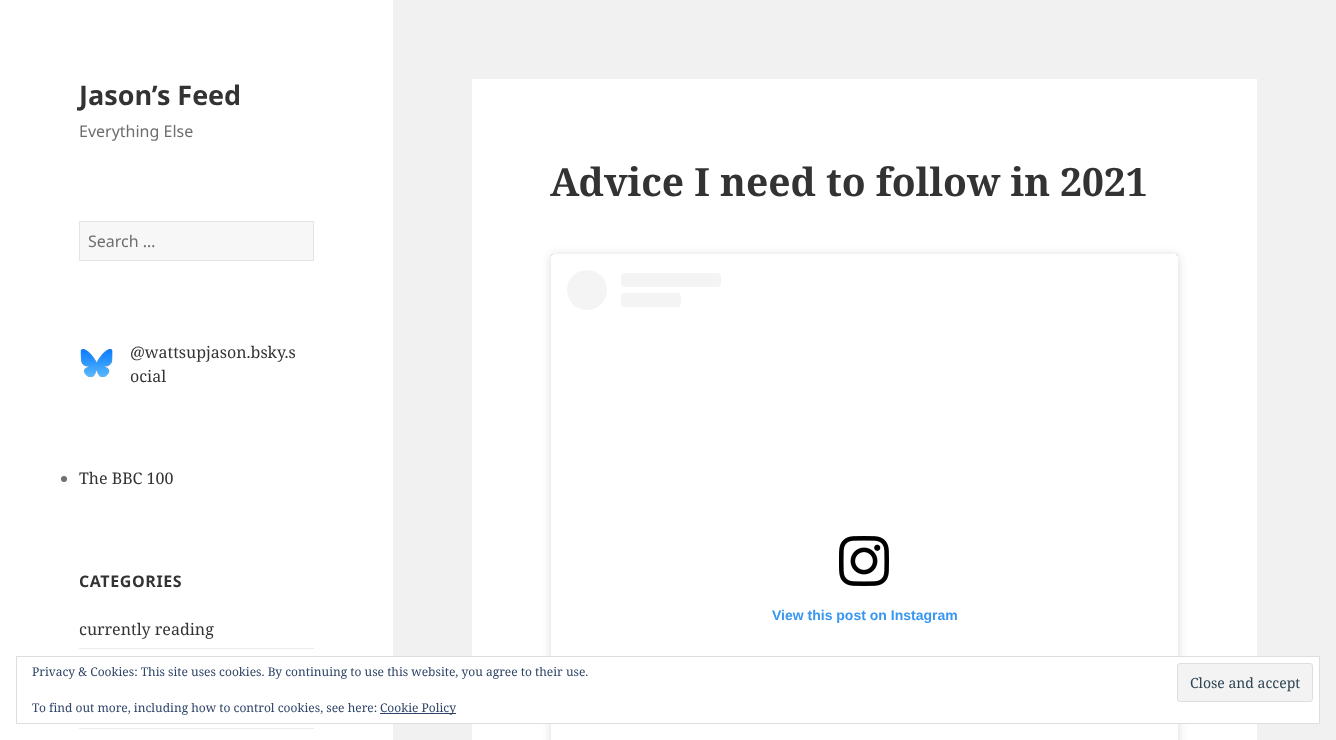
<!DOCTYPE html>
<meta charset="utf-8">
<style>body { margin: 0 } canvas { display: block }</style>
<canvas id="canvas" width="1336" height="740"></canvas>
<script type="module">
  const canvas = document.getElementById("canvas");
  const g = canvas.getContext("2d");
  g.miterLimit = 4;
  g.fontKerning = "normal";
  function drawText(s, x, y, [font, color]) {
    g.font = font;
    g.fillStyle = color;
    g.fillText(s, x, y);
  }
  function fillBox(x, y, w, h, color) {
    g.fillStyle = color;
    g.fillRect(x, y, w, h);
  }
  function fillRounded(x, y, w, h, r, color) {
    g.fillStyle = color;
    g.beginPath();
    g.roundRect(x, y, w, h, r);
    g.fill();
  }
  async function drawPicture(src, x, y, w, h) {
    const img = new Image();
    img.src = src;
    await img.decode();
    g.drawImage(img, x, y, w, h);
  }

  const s1 = ["bold 27px Noto Sans", "#333333"];
  const s2 = ["16px Noto Sans", "#6E6E6E"];
  const s3 = ["16px Noto Serif", "#333333"];
  const s4 = ["bold 16px Noto Sans", "#333333"];
  const s5 = ["bold 39px Noto Serif", "#333333"];
  const s6 = ["bold 14px Liberation Sans", "#3897F0"];
  const s7 = ["12px Noto Serif", "#2E4467"];
  const s8 = ["14px Noto Serif", "#2E4453"];

  fillBox(0, 0, 1336, 740, "#F1F1F1");
  fillBox(0, 0, 393, 740, "#FFFFFF");
  drawText("Jason’s Feed", 79, 105, s1);
  drawText("Everything Else", 79, 137, s2);
  g.fillStyle = "#F7F7F7";
  g.beginPath();
  g.rect(79.5, 221.5, 234, 39);
  g.fill();
  g.strokeStyle = "#E3E3E3";
  g.stroke();
  drawText("Search …", 88, 247, s2);
  await drawPicture("pic1.png", 80, 349, 33, 28);
  drawText("@wattsupjason.bsky.s", 130, 358, s3);
  drawText("ocial", 130, 382, s3);
  g.fillStyle = "#707070";
  g.beginPath();
  g.arc(64, 479, 3, 0, Math.PI * 2);
  g.fill();
  drawText("The BBC 100", 79, 484, s3);
  g.letterSpacing = "0.6px";
  drawText("CATEGORIES", 79, 587, s4);
  g.letterSpacing = "0px";
  drawText("currently reading", 79, 635, s3);
  fillBox(79, 648, 235, 1, "#EBEBEB");
  fillBox(79, 728, 235, 1, "#EBEBEB");
  fillBox(472, 79, 785, 661, "#FFFFFF");
  drawText("Advice I need to follow in 2021", 550, 196, s5);
  g.fillStyle = "rgba(0, 0, 0, 0.15)";
  g.filter = "blur(5px)";
  g.beginPath();
  g.roundRect(551, 255, 627, 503, 3);
  g.fill();
  g.filter = "none";
  g.fillStyle = "rgba(0, 0, 0, 0.5)";
  g.filter = "blur(0.5px)";
  g.beginPath();
  g.roundRect(551, 254, 627, 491, 3);
  g.fill();
  g.filter = "none";
  fillRounded(551, 254, 627, 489, 3, "#FFFFFF");
  g.fillStyle = "#F4F4F4";
  g.beginPath();
  g.arc(587, 290, 20, 0, Math.PI * 2);
  g.fill();
  fillRounded(621, 273, 100, 14, 4, "#F4F4F4");
  fillRounded(621, 293, 60, 14, 4, "#F4F4F4");
  await drawPicture("pic2.png", 839, 536, 50, 50);
  drawText("View this post on Instagram", 772, 620, s6);
  fillBox(393, 657, 926, 66, "#FFFFFF");
  g.strokeStyle = "#DEDEDE";
  g.strokeRect(16.5, 656.5, 1303, 67);
  drawText("Privacy & Cookies: This site uses cookies. By continuing to use this website, you agree to their use.", 32, 676, s7);
  g.fillStyle = "#F3F3F3";
  g.beginPath();
  g.roundRect(1177.5, 663.5, 135, 38, 2.5);
  g.fill();
  g.stroke();
  drawText("Close and accept", 1190, 688, s8);
  drawText("To find out more, including how to control cookies, see here:", 32, 712, s7);
  fillBox(380, 713, 76, 1, "#2E4467");
  drawText("Cookie Policy", 380, 712, s7);
</script>
